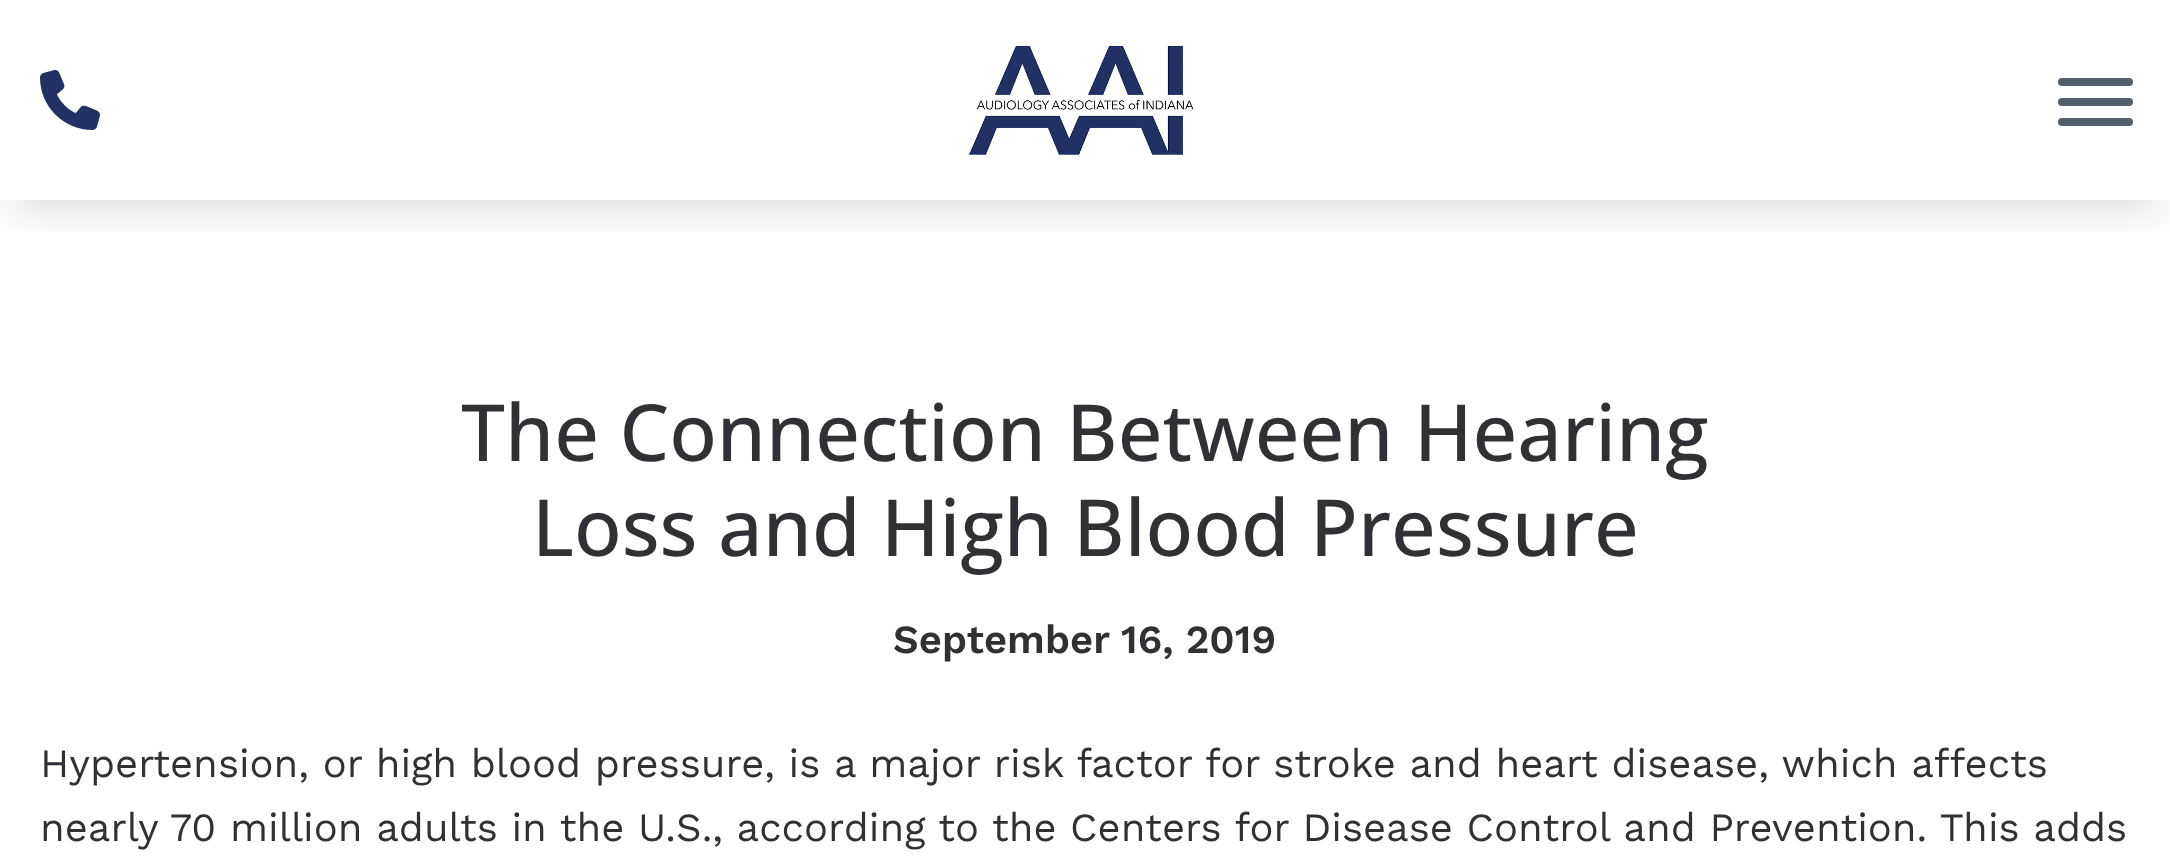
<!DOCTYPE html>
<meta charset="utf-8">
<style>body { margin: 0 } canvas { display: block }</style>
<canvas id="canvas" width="2170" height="859"></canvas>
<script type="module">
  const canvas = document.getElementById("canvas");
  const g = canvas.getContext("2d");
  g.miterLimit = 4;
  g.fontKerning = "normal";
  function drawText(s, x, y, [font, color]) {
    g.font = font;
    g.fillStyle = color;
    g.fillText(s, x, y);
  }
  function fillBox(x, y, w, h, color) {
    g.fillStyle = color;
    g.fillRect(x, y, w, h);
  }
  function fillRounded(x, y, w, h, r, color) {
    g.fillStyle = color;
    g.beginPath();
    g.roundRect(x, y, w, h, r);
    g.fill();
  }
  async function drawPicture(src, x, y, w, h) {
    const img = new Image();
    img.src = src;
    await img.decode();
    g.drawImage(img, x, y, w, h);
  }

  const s1 = ["500 78.75px Open Sans", "#313135"];
  const s2 = ["600 40px Work Sans", "#313135"];
  const s3 = ["40px Work Sans", "#313135"];

  fillBox(0, 0, 2170, 859, "#FFFFFF");
  g.save();
  g.beginPath();
  g.rect(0, 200, 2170, 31);
  g.clip();
  g.fillStyle = "rgba(0, 0, 0, 0.12)";
  g.filter = "blur(19px)";
  g.beginPath();
  g.rect(13, 38, 2145, 175);
  g.fill();
  g.filter = "none";
  g.restore();
  await drawPicture("pic1.png", 40, 70, 60, 60);
  await drawPicture("pic2.png", 969, 46, 225, 109);
  fillRounded(2058, 78, 75, 8, 4, "#515F6C");
  fillRounded(2058, 98, 75, 8, 4, "#515F6C");
  fillRounded(2058, 118, 75, 8, 4, "#515F6C");
  drawText("The Connection Between Hearing", 461, 461, s1);
  drawText("Loss and High Blood Pressure", 532, 556, s1);
  drawText("September 16, 2019", 893, 653, s2);
  drawText("Hypertension, or high blood pressure, is a major risk factor for stroke and heart disease, which affects", 40, 777, s3);
  drawText("nearly 70 million adults in the U.S., according to the Centers for Disease Control and Prevention. This adds", 40, 841, s3);
</script>
